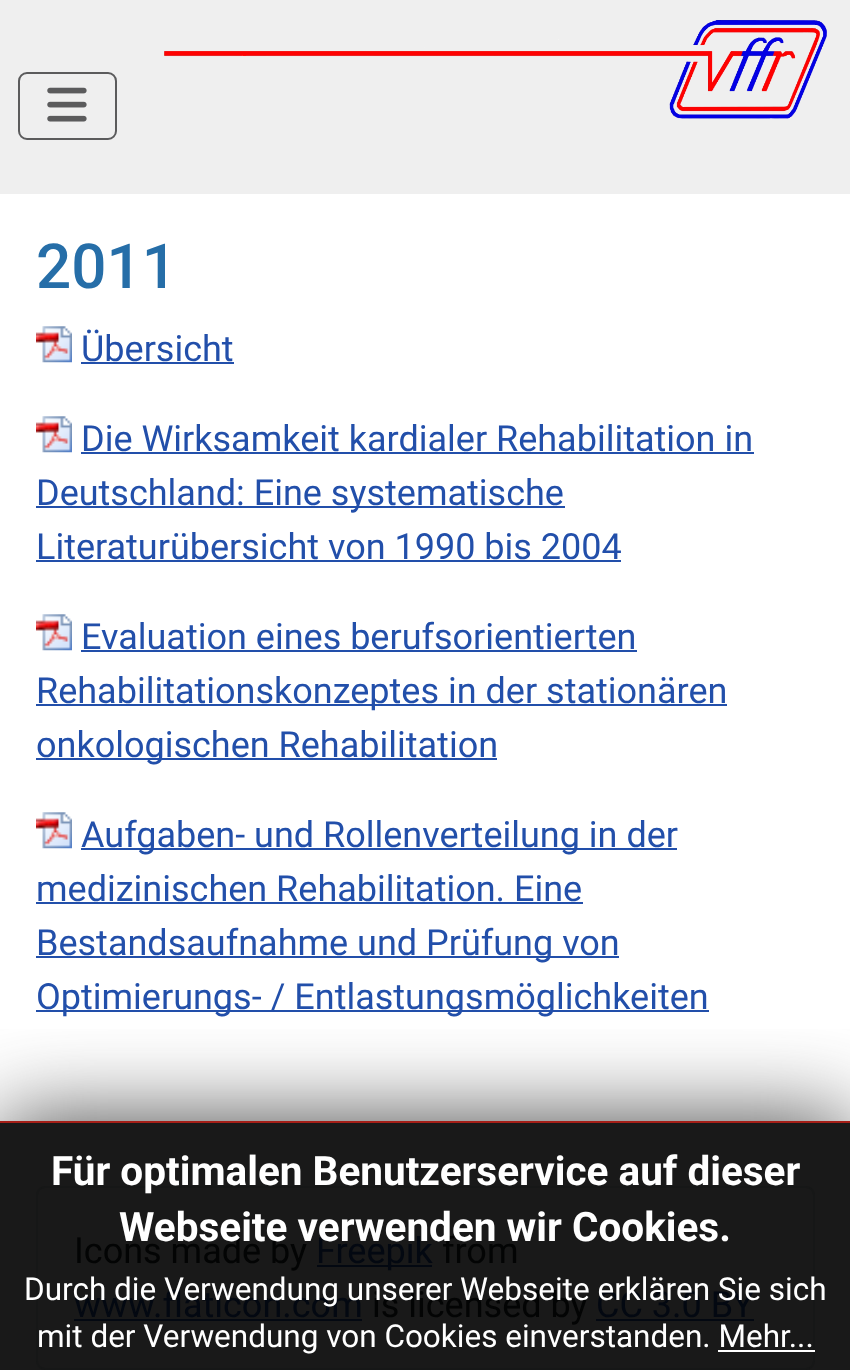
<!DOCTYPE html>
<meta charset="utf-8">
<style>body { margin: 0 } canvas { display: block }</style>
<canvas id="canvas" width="850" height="1370"></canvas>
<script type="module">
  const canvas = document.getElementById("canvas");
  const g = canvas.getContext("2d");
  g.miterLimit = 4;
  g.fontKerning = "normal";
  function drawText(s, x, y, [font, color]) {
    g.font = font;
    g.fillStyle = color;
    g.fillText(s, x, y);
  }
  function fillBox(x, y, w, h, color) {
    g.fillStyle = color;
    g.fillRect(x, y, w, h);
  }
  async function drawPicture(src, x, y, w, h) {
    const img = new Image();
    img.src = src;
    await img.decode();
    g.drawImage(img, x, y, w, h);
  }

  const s1 = ["500 62px Roboto", "#266EA8"];
  const s2 = ["36px Roboto", "#224FAA"];
  const s3 = ["36px Roboto", "#030404"];
  const s4 = ["36px Roboto", "#030811"];
  const s5 = ["bold 40.5px Roboto", "#FFFFFF"];
  const s6 = ["31.5px Roboto", "#FFFFFF"];

  fillBox(0, 0, 850, 1370, "#FFFFFF");
  fillBox(0, 1123, 850, 247, "#191919");
  fillBox(0, 0, 850, 194, "#EFEFEF");
  g.beginPath();
  g.roundRect(19, 73, 97, 66, 8);
  g.strokeStyle = "#5B5B5C";
  g.lineWidth = 2;
  g.stroke();
  await drawPicture("pic1.png", 47, 87, 40, 35);
  await drawPicture("pic2.png", 164, 20, 663, 99);
  drawText("2011", 36, 288, s1);
  await drawPicture("pic3.png", 36, 326, 36, 37);
  drawText("Übersicht", 81, 361, s2);
  fillBox(81, 362, 153, 2, "#224FAA");
  await drawPicture("pic3.png", 36, 416, 36, 37);
  drawText("Die Wirksamkeit kardialer Rehabilitation in", 81, 451, s2);
  fillBox(81, 452, 673, 2, "#224FAA");
  fillBox(36, 506, 529, 2, "#224FAA");
  drawText("Deutschland: Eine systematische", 36, 505, s2);
  drawText("Literaturübersicht von 1990 bis 2004", 36, 559, s2);
  fillBox(36, 560, 585, 2, "#224FAA");
  await drawPicture("pic3.png", 36, 614, 36, 37);
  drawText("Evaluation eines berufsorientierten", 81, 649, s2);
  fillBox(81, 650, 556, 2, "#224FAA");
  fillBox(36, 704, 691, 2, "#224FAA");
  drawText("Rehabilitationskonzeptes in der stationären", 36, 703, s2);
  fillBox(36, 758, 461, 2, "#224FAA");
  drawText("onkologischen Rehabilitation", 36, 757, s2);
  await drawPicture("pic4.png", 36, 812, 36, 37);
  fillBox(81, 848, 596, 2, "#224FAA");
  drawText("Aufgaben- und Rollenverteilung in der", 81, 847, s2);
  drawText("medizinischen Rehabilitation. Eine", 36, 901, s2);
  fillBox(36, 902, 547, 2, "#224FAA");
  fillBox(36, 956, 583, 2, "#224FAA");
  drawText("Bestandsaufnahme und Prüfung von", 36, 955, s2);
  fillBox(36, 1010, 673, 2, "#224FAA");
  drawText("Optimierungs- / Entlastungsmöglichkeiten", 36, 1009, s2);
  g.beginPath();
  g.roundRect(37, 1187, 777, 182, 8);
  g.strokeStyle = "#161717";
  g.stroke();
  drawText("Icons made by", 74, 1263, s3);
  fillBox(317, 1265, 115, 2, "#030811");
  drawText("Freepik", 316, 1263, s4);
  drawText("from", 442, 1263, s3);
  drawText("www.flaticon.com", 74, 1317, s4);
  fillBox(74, 1319, 288, 2, "#030811");
  drawText("is licensed by", 372, 1317, s3);
  drawText("CC 3.0 BY", 596, 1317, s4);
  fillBox(596, 1319, 158, 2, "#030811");
  g.save();
  g.beginPath();
  g.rect(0, 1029, 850, 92);
  g.clip();
  g.fillStyle = "#444444";
  g.filter = "blur(45px)";
  g.beginPath();
  g.rect(0, 1121, 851, 249);
  g.fill();
  g.filter = "none";
  g.restore();
  fillBox(0, 1121, 850, 2, "#A51F18");
  drawText("Für optimalen Benutzerservice auf dieser", 51, 1185, s5);
  drawText("Webseite verwenden wir Cookies.", 119, 1241, s5);
  drawText("Durch die Verwendung unserer Webseite erklären Sie sich", 24, 1300, s6);
  drawText("mit der Verwendung von Cookies einverstanden. Mehr...", 37, 1347, s6);
  fillBox(718, 1350, 97, 2, "#FFFFFF");
</script>
